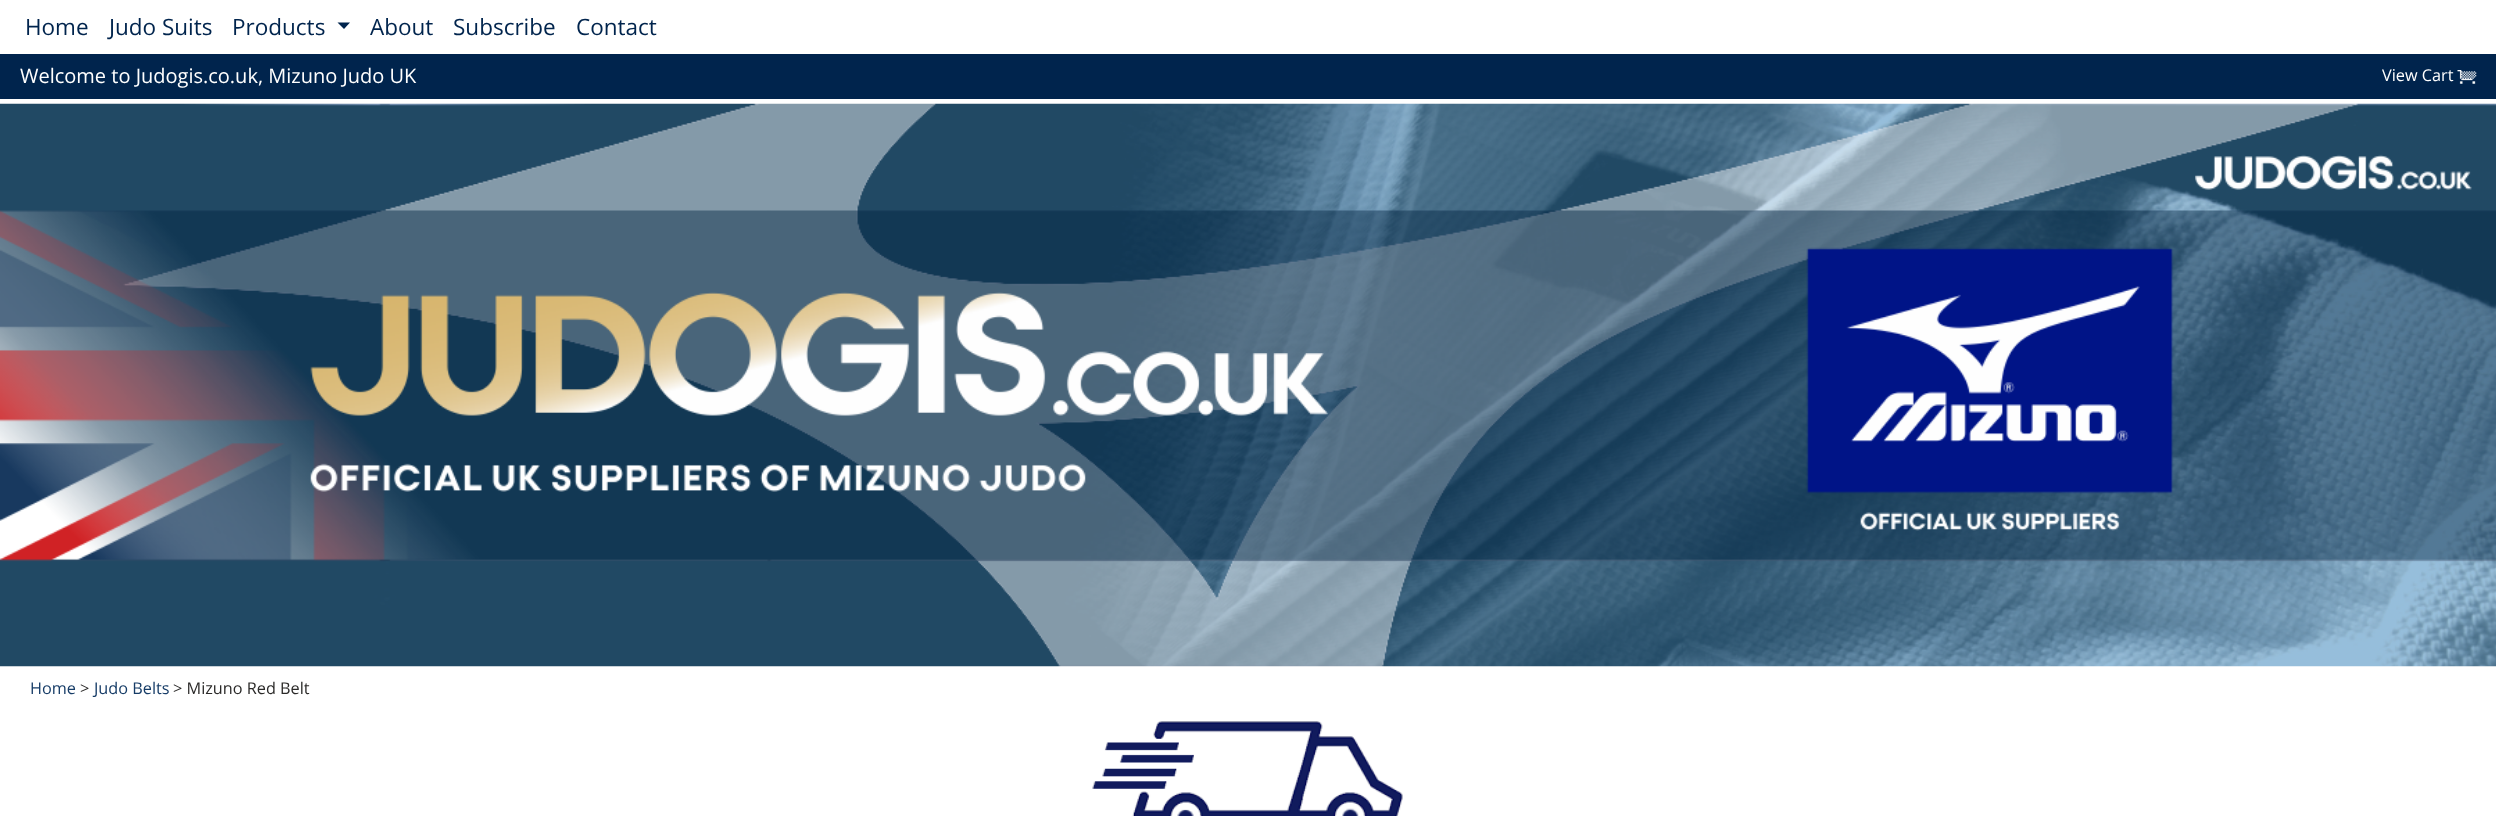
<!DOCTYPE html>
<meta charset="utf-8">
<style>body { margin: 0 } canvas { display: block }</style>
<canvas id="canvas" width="2496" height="816"></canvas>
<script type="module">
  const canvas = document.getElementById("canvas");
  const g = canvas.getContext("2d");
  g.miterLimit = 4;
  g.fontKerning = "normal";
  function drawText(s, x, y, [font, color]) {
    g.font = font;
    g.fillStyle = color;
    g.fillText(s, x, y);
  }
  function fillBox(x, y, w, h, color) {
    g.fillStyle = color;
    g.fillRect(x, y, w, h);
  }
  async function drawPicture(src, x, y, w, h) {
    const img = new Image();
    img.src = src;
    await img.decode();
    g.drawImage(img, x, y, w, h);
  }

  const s1 = ["22.5px Open Sans", "#00244D"];
  const s2 = ["20px Open Sans", "#FFFFFF"];
  const s3 = ["16.25px Open Sans", "#FFFFFF"];
  const s4 = ["16.25px Open Sans", "#163C67"];
  const s5 = ["16.25px Open Sans", "#2B2A29"];

  fillBox(0, 0, 2496, 816, "#FFFFFF");
  drawText("Home", 25, 35, s1);
  drawText("Judo Suits", 109, 35, s1);
  drawText("Products", 232, 35, s1);
  g.beginPath();
  g.moveTo(337.5, 22.5);
  g.lineTo(350, 22.5);
  g.lineTo(344, 29);
  g.closePath();
  g.fill();
  drawText("About", 370, 35, s1);
  drawText("Subscribe", 453, 35, s1);
  drawText("Contact", 576, 35, s1);
  fillBox(0, 54, 2496, 45, "#00244D");
  drawText("Welcome to Judogis.co.uk, Mizuno Judo UK", 20, 83, s2);
  drawText("View Cart", 2382, 81, s3);
  await drawPicture("pic1.png", 2457, 70, 20, 14);
  await drawPicture("pic2.png", 0, 103, 2496, 564);
  drawText("Home", 30, 694, s4);
  drawText(">", 80, 694, s5);
  drawText("Judo Belts", 94, 694, s4);
  drawText("> Mizuno Red Belt", 173, 694, s5);
  await drawPicture("pic3.png", 1092, 721, 311, 95);
</script>
